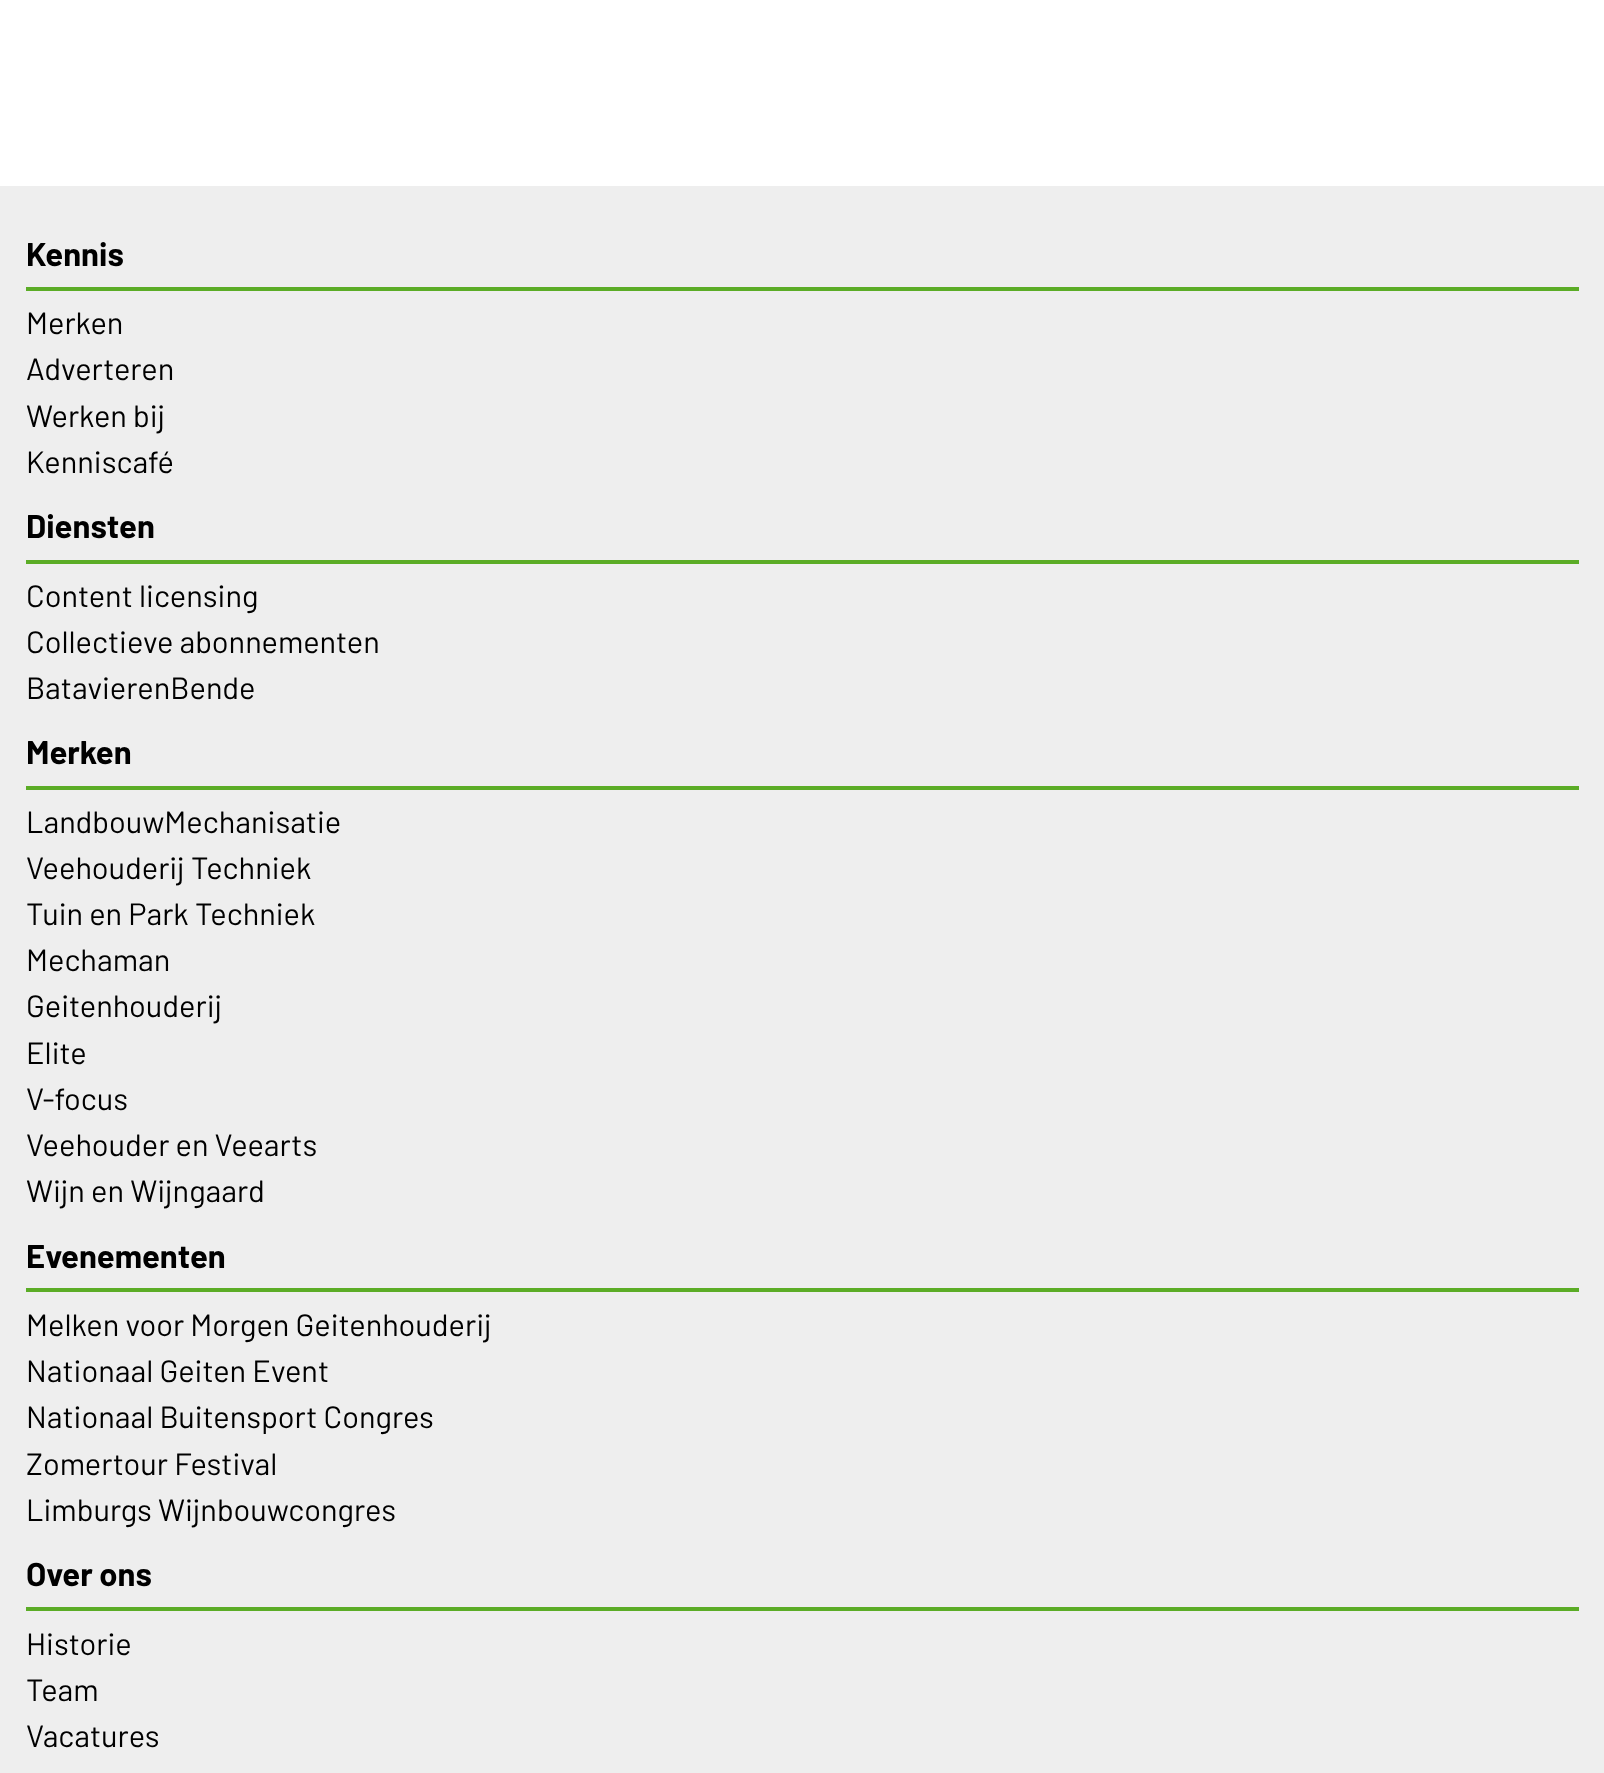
<!DOCTYPE html>
<meta charset="utf-8">
<style>body { margin: 0 } canvas { display: block }</style>
<canvas id="canvas" width="1604" height="1773"></canvas>
<script type="module">
  const canvas = document.getElementById("canvas");
  const g = canvas.getContext("2d");
  g.miterLimit = 4;
  g.fontKerning = "normal";
  function drawText(s, x, y, [font, color]) {
    g.font = font;
    g.fillStyle = color;
    g.fillText(s, x, y);
  }
  function fillBox(x, y, w, h, color) {
    g.fillStyle = color;
    g.fillRect(x, y, w, h);
  }

  const s1 = ["bold 32.75px Barlow", "#000000"];
  const s2 = ["30.75px Barlow", "#000000"];

  fillBox(0, 0, 1604, 1773, "#FFFFFF");
  fillBox(0, 186, 1604, 1587, "#EEEEEE");
  fillBox(26, 287, 1553, 4, "#5BAC26");
  drawText("Kennis", 26, 266, s1);
  drawText("Merken", 26, 334, s2);
  drawText("Adverteren", 26, 380, s2);
  drawText("Werken bij", 26, 427, s2);
  drawText("Kenniscafé", 26, 473, s2);
  fillBox(26, 560, 1553, 4, "#5BAC26");
  drawText("Diensten", 26, 538, s1);
  drawText("Content licensing", 26, 607, s2);
  drawText("Collectieve abonnementen", 26, 653, s2);
  drawText("BatavierenBende", 26, 699, s2);
  fillBox(26, 786, 1553, 4, "#5BAC26");
  drawText("Merken", 26, 764, s1);
  drawText("LandbouwMechanisatie", 26, 833, s2);
  drawText("Veehouderij Techniek", 26, 879, s2);
  drawText("Tuin en Park Techniek", 26, 925, s2);
  drawText("Mechaman", 26, 971, s2);
  drawText("Geitenhouderij", 26, 1017, s2);
  drawText("Elite", 26, 1064, s2);
  drawText("V-focus", 26, 1110, s2);
  drawText("Veehouder en Veearts", 26, 1156, s2);
  drawText("Wijn en Wijngaard", 26, 1202, s2);
  fillBox(26, 1288, 1553, 4, "#5BAC26");
  drawText("Evenementen", 26, 1268, s1);
  drawText("Melken voor Morgen Geitenhouderij", 26, 1336, s2);
  drawText("Nationaal Geiten Event", 26, 1382, s2);
  drawText("Nationaal Buitensport Congres", 26, 1428, s2);
  drawText("Zomertour Festival", 26, 1475, s2);
  drawText("Limburgs Wijnbouwcongres", 26, 1521, s2);
  fillBox(26, 1607, 1553, 4, "#5BAC26");
  drawText("Over ons", 26, 1586, s1);
  drawText("Historie", 26, 1655, s2);
  drawText("Team", 26, 1701, s2);
  drawText("Vacatures", 26, 1747, s2);
</script>
